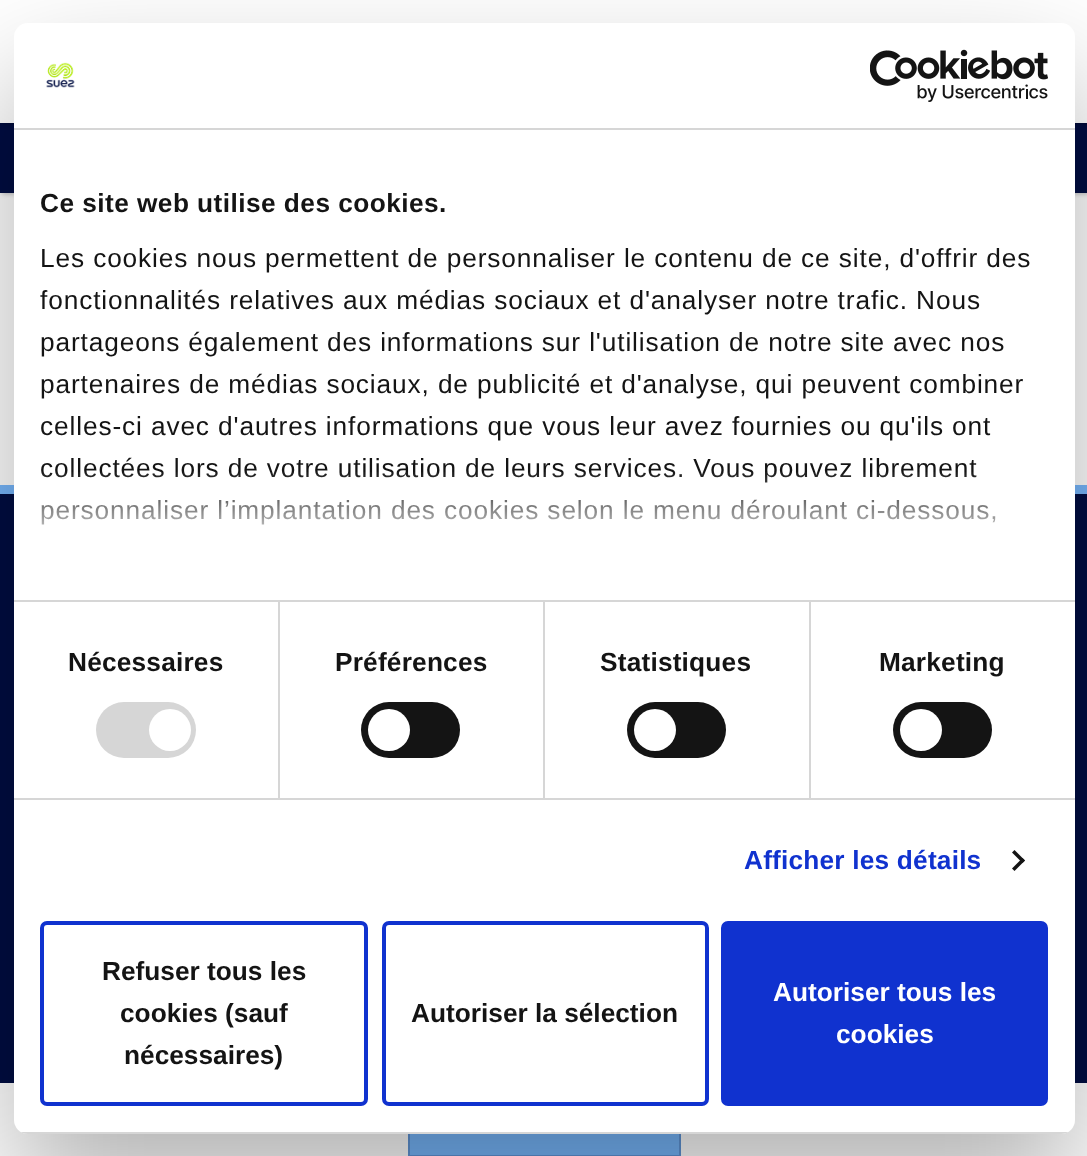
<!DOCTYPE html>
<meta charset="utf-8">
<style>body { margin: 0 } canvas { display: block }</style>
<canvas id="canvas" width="1087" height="1156"></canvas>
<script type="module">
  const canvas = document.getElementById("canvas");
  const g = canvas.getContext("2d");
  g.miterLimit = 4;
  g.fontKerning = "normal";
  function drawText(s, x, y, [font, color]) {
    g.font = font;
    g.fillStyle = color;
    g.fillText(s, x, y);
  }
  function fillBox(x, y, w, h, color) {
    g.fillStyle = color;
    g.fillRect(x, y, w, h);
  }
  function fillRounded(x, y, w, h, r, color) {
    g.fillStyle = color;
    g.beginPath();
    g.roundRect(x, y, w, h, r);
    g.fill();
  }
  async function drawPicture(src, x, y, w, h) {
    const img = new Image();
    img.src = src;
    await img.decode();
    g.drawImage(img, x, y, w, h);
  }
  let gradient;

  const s1 = ["bold 26.25px Liberation Sans", "#141414"];
  const s2 = ["26.25px Liberation Sans", "#141414"];
  const s3 = ["bold 26.25px Liberation Sans", "#1032CF"];
  const s4 = ["bold 26.25px Liberation Sans", "#FFFFFF"];

  fillBox(0, 0, 1087, 1156, "#FFFFFF");
  g.fillStyle = "rgba(0, 0, 0, 0.25)";
  g.filter = "blur(2.5px)";
  g.beginPath();
  g.rect(2, 2, 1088, 192);
  g.fill();
  g.filter = "none";
  fillBox(0, 123, 1087, 70, "#000D42");
  g.fillStyle = "rgba(0, 0, 0, 0.25)";
  g.filter = "blur(2.5px)";
  g.beginPath();
  g.rect(2, 2, 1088, 122);
  g.fill();
  g.filter = "none";
  fillBox(0, 0, 1087, 123, "#FFFFFF");
  fillBox(0, 494, 1087, 589, "#000D42");
  fillBox(0, 485, 1087, 9, "#77B7FC");
  fillBox(410, 1134, 269, 21, "#77B7FC");
  g.strokeStyle = "#6095D6";
  g.lineWidth = 2;
  g.strokeRect(409, 1053, 271, 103);
  g.fillStyle = "rgba(0, 0, 0, 0.3)";
  g.filter = "blur(59.5px)";
  g.beginPath();
  g.roundRect(14, 79, 1061, 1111, 14);
  g.fill();
  g.filter = "none";
  fillRounded(14, 23, 1061, 1111, 14, "#FFFFFF");
  fillBox(14, 128, 1061, 2, "#D6D6D6");
  await drawPicture("pic1.png", 46, 62, 29, 26);
  await drawPicture("pic2.png", 870, 49, 178, 53);
  fillBox(14, 600, 1061, 2, "#D6D6D6");
  g.letterSpacing = "0.45px";
  drawText("Ce site web utilise des cookies.", 40, 212, s1);
  g.letterSpacing = "0.88px";
  drawText("Les cookies nous permettent de personnaliser le contenu de ce site, d'offrir des", 40, 267, s2);
  drawText("fonctionnalités relatives aux médias sociaux et d'analyser notre trafic. Nous", 40, 309, s2);
  drawText("partageons également des informations sur l'utilisation de notre site avec nos", 40, 351, s2);
  drawText("partenaires de médias sociaux, de publicité et d'analyse, qui peuvent combiner", 40, 393, s2);
  drawText("celles-ci avec d'autres informations que vous leur avez fournies ou qu'ils ont", 40, 435, s2);
  drawText("collectées lors de votre utilisation de leurs services. Vous pouvez librement", 40, 477, s2);
  drawText("personnaliser l’implantation des cookies selon le menu déroulant ci-dessous,", 40, 519, s2);
  gradient = g.createLinearGradient(533, 601, 533, 470);
  gradient.addColorStop(0, "#FFFFFF");
  gradient.addColorStop(0.5, "rgba(255, 255, 255, 0.8)");
  gradient.addColorStop(1, "rgba(255, 255, 255, 0)");
  g.fillStyle = gradient;
  g.fillRect(41, 472, 955, 53);
  fillBox(14, 798, 1061, 2, "#D6D6D6");
  fillBox(278, 602, 2, 196, "#D6D6D6");
  g.letterSpacing = "0.2px";
  drawText("Nécessaires", 68, 671, s1);
  fillRounded(96, 702, 100, 56, 28, "#D6D6D6");
  g.fillStyle = "#FFFFFF";
  g.beginPath();
  g.arc(170, 730, 21, 0, Math.PI * 2);
  g.fill();
  fillBox(543, 602, 2, 196, "#D6D6D6");
  drawText("Préférences", 335, 671, s1);
  fillRounded(361, 702, 99, 56, 28, "#141414");
  g.fillStyle = "#FFFFFF";
  g.beginPath();
  g.arc(389, 730, 21, 0, Math.PI * 2);
  g.fill();
  fillBox(809, 602, 2, 196, "#D6D6D6");
  drawText("Statistiques", 600, 671, s1);
  fillRounded(627, 702, 99, 56, 28, "#141414");
  g.fillStyle = "#FFFFFF";
  g.beginPath();
  g.arc(655, 730, 21, 0, Math.PI * 2);
  g.fill();
  drawText("Marketing", 879, 671, s1);
  fillRounded(893, 702, 99, 56, 28, "#141414");
  g.fillStyle = "#FFFFFF";
  g.beginPath();
  g.arc(921, 730, 21, 0, Math.PI * 2);
  g.fill();
  drawText("Afficher les détails", 744, 869, s3);
  g.fillStyle = "#141414";
  g.beginPath();
  g.moveTo(1014.5, 850);
  g.lineTo(1025, 860.5);
  g.lineTo(1022.5, 863);
  g.lineTo(1012, 852.5);
  g.closePath();
  g.fill();
  g.beginPath();
  g.moveTo(1022.5, 858);
  g.lineTo(1025, 860.5);
  g.lineTo(1014.5, 871);
  g.lineTo(1012, 868.5);
  g.closePath();
  g.fill();
  g.save();
  g.beginPath();
  g.roundRect(14, 23, 1061, 1111, 14);
  g.clip();
  fillBox(14, 1132, 1061, 2, "#D6D6D6");
  g.restore();
  g.beginPath();
  g.roundRect(42, 923, 324, 181, 5);
  g.strokeStyle = "#1032CF";
  g.lineWidth = 4;
  g.stroke();
  g.letterSpacing = "0px";
  drawText("Refuser tous les", 102, 980, s1);
  drawText("cookies (sauf", 120, 1022, s1);
  drawText("nécessaires)", 124, 1064, s1);
  g.beginPath();
  g.roundRect(384, 923, 323, 181, 5);
  g.stroke();
  drawText("Autoriser la sélection", 411, 1022, s1);
  g.fillStyle = "#1032CF";
  g.beginPath();
  g.roundRect(723, 923, 323, 181, 5);
  g.fill();
  g.stroke();
  drawText("Autoriser tous les", 773, 1001, s4);
  drawText("cookies", 836, 1043, s4);
</script>
